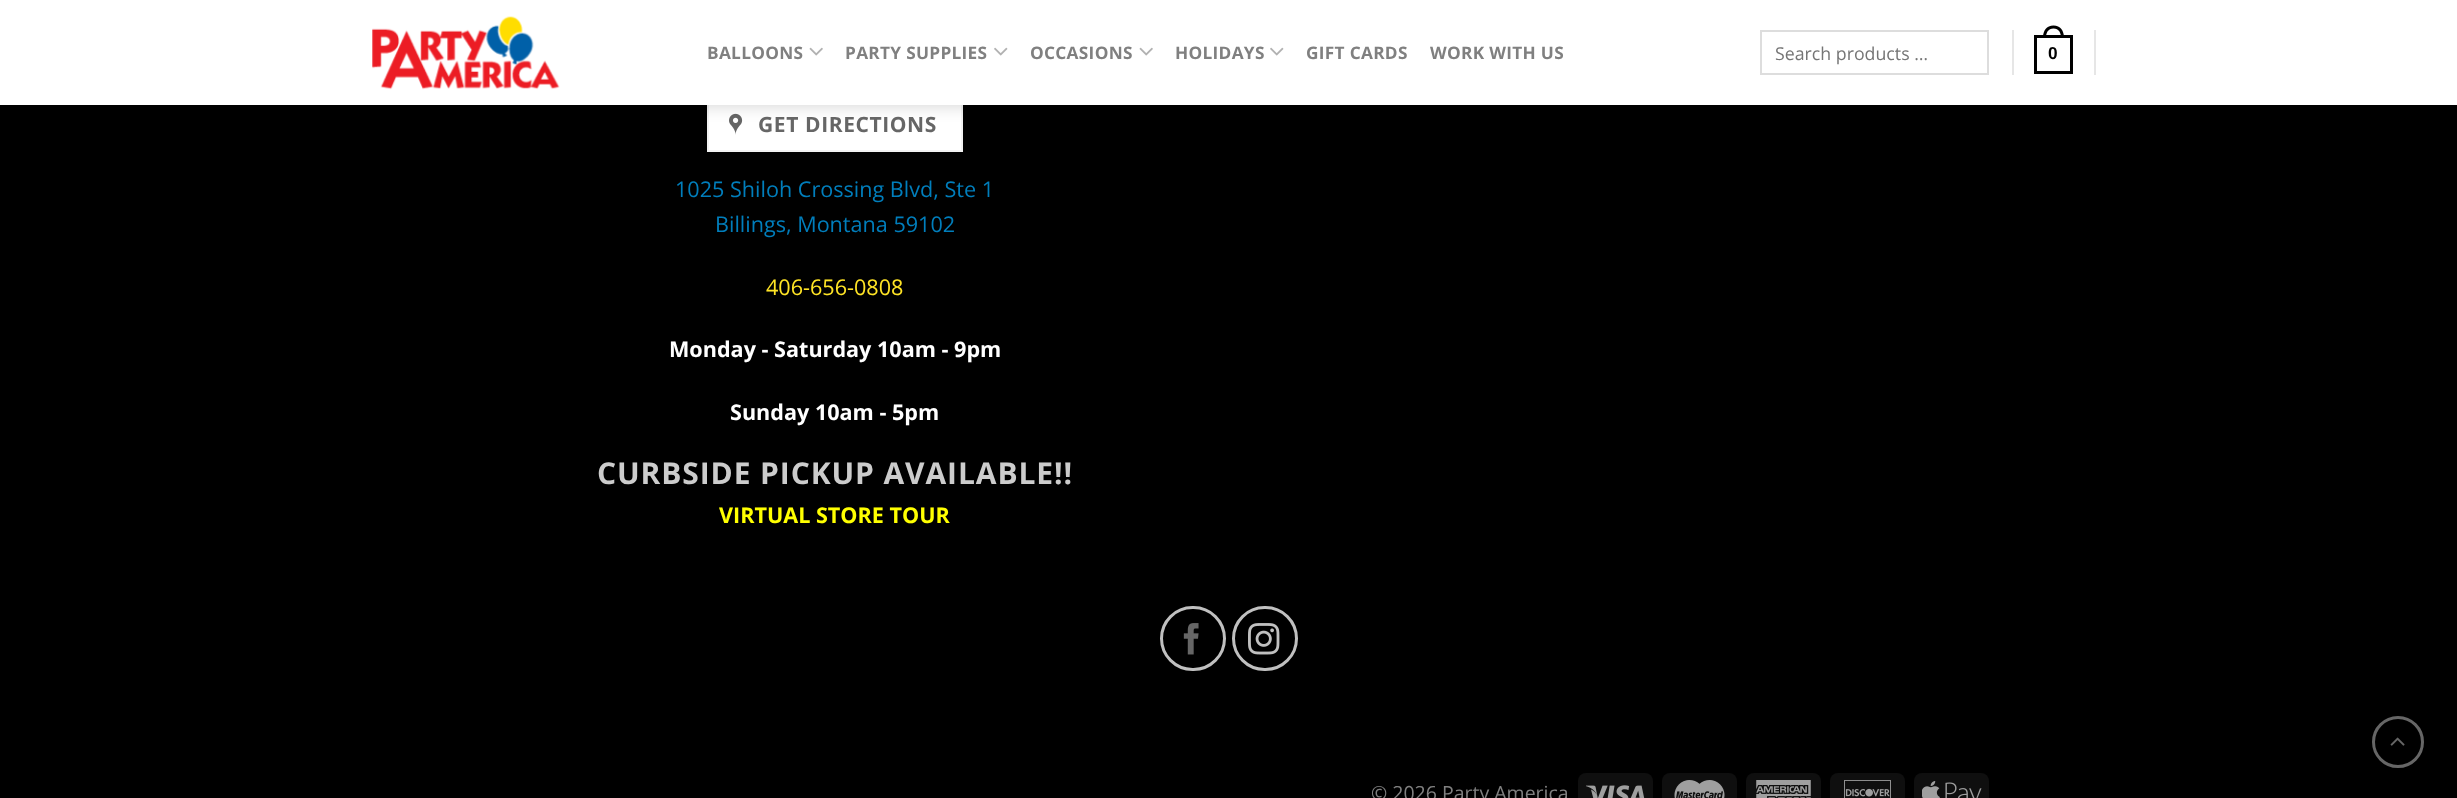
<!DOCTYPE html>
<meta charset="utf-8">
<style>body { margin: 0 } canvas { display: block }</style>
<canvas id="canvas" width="2457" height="798"></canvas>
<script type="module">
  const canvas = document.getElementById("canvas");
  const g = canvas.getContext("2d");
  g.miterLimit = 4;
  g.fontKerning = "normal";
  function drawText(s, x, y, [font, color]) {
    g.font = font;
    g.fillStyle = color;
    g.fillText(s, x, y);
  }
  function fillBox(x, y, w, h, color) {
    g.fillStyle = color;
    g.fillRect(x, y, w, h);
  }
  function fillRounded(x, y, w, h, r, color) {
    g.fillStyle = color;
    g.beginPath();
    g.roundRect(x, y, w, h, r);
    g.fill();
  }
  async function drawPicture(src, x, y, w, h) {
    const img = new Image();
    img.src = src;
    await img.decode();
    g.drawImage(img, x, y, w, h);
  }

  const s1 = ["bold 17.25px Open Sans", "#808080"];
  const s2 = ["17.75px Open Sans", "#757575"];
  const s3 = ["bold 17.25px Liberation Sans", "#000000"];
  const s4 = ["bold 21px Open Sans", "#666666"];
  const s5 = ["21.6px Open Sans", "#007EBC"];
  const s6 = ["21.6px Open Sans", "#FFE425"];
  const s7 = ["bold 21.6px Open Sans", "#FFFFFF"];
  const s8 = ["bold 30px Open Sans", "#CCCCCC"];
  const s9 = ["bold 21.6px Open Sans", "#FFFF00"];
  const s10 = ["19.5px Open Sans", "#808080"];

  fillBox(0, 0, 2457, 798, "#000000");
  fillBox(709, 105, 252, 45, "#FFFFFF");
  g.strokeStyle = "#F2F2F2";
  g.lineWidth = 2;
  g.strokeRect(708, 99, 254, 52);
  await drawPicture("pic4.png", 729, 113, 14, 22);
  g.fillStyle = "rgba(0, 0, 0, 0.15)";
  g.filter = "blur(7.5px)";
  g.beginPath();
  g.rect(2, 2, 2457, 105);
  g.fill();
  g.filter = "none";
  fillBox(0, 0, 2457, 105, "#FFFFFF");
  await drawPicture("pic1.png", 372, 16, 188, 74);
  g.letterSpacing = "0.3px";
  drawText("BALLOONS", 707, 59, s1);
  await drawPicture("pic2.png", 809, 47, 14, 9);
  drawText("PARTY SUPPLIES", 845, 59, s1);
  await drawPicture("pic3.png", 994, 47, 14, 9);
  drawText("OCCASIONS", 1030, 59, s1);
  await drawPicture("pic2.png", 1139, 47, 14, 9);
  drawText("HOLIDAYS", 1175, 59, s1);
  await drawPicture("pic3.png", 1270, 47, 14, 9);
  drawText("GIFT CARDS", 1306, 59, s1);
  drawText("WORK WITH US", 1430, 59, s1);
  g.strokeStyle = "#DDDDDD";
  g.strokeRect(1761, 31, 227, 43);
  g.letterSpacing = "0px";
  drawText("Search products …", 1775, 60, s2);
  fillBox(2012, 30, 2, 45, "#E6E6E6");
  g.strokeStyle = "#000000";
  g.lineWidth = 3;
  g.strokeRect(2035.5, 36.5, 36, 36);
  g.fillStyle = "#000000";
  g.beginPath();
  g.moveTo(2053.5, 25.5);
  g.bezierCurveTo(2060.5, 25.5, 2064, 31, 2064, 37.5);
  g.lineTo(2043, 37.5);
  g.bezierCurveTo(2043, 31, 2046.5, 25.5, 2053.5, 25.5);
  g.closePath();
  g.moveTo(2053.5, 28.5);
  g.bezierCurveTo(2059, 28.5, 2061, 33, 2061, 37.5);
  g.lineTo(2046, 37.5);
  g.bezierCurveTo(2046, 33, 2048, 28.5, 2053.5, 28.5);
  g.closePath();
  g.fill("evenodd");
  g.letterSpacing = "0.3px";
  drawText("0", 2048, 59, s3);
  fillBox(2094, 30, 2, 45, "#E6E6E6");
  g.letterSpacing = "0.6px";
  drawText("GET DIRECTIONS", 758, 132, s4);
  g.letterSpacing = "0px";
  drawText("1025 Shiloh Crossing Blvd, Ste 1", 675, 197, s5);
  drawText("Billings, Montana 59102", 715, 232, s5);
  drawText("406-656-0808", 766, 295, s6);
  drawText("Monday - Saturday 10am - 9pm", 669, 357, s7);
  drawText("Sunday 10am - 5pm", 730, 420, s7);
  g.letterSpacing = "0.9px";
  drawText("CURBSIDE PICKUP AVAILABLE!!", 597, 484, s8);
  g.letterSpacing = "0px";
  drawText("VIRTUAL STORE TOUR", 719, 523, s9);
  g.beginPath();
  g.roundRect(1161.5, 607.5, 63, 62, 31);
  g.strokeStyle = "#C0C0C0";
  g.stroke();
  await drawPicture("pic5.png", 1183, 623, 16, 32);
  g.beginPath();
  g.roundRect(1233.5, 607.5, 63, 62, 31);
  g.stroke();
  await drawPicture("pic6.png", 1248, 623, 32, 32);
  g.beginPath();
  g.arc(2398, 742, 24.5, 0, Math.PI * 2);
  g.strokeStyle = "#666666";
  g.stroke();
  await drawPicture("pic7.png", 2390, 737, 15, 9);
  drawText("© 2026 Party America", 1371, 800, s10);
  fillRounded(1578, 773, 75, 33, 8, "#0F0F0F");
  await drawPicture("pic8.png", 1586, 785, 59, 13);
  fillRounded(1662, 773, 75, 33, 8, "#0F0F0F");
  await drawPicture("pic9.png", 1674, 780, 51, 18);
  fillRounded(1746, 773, 75, 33, 8, "#0F0F0F");
  await drawPicture("pic10.png", 1756, 780, 55, 18);
  fillRounded(1830, 773, 75, 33, 8, "#0F0F0F");
  await drawPicture("pic11.png", 1844, 780, 47, 18);
  fillRounded(1914, 773, 75, 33, 8, "#0F0F0F");
  await drawPicture("pic12.png", 1922, 781, 60, 17);
</script>
